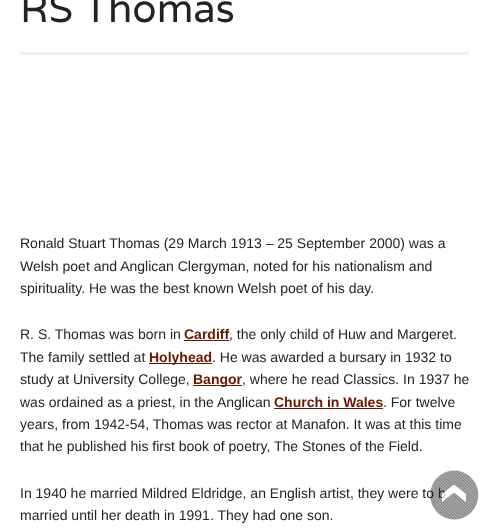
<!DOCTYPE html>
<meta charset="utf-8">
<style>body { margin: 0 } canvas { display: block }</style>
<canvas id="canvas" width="489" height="530"></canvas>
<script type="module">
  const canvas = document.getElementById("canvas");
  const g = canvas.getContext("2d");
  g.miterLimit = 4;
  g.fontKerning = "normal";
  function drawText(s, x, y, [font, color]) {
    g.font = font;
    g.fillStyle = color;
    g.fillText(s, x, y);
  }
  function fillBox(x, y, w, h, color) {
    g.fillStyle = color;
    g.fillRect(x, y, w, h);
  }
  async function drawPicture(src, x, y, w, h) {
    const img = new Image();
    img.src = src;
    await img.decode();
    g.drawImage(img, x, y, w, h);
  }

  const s1 = ["40px Varela", "#222222"];
  const s2 = ["14px Liberation Sans", "#222222"];
  const s3 = ["bold 14px Liberation Sans", "#6A1500"];

  fillBox(0, 0, 489, 530, "#FFFFFF");
  fillBox(20, 52, 449, 3, "#ECF0F1");
  drawText("RS Thomas", 20, 22, s1);
  drawText("Ronald Stuart Thomas (29 March 1913 – 25 September 2000) was a", 20, 248, s2);
  drawText("Welsh poet and Anglican Clergyman, noted for his nationalism and", 20, 271, s2);
  drawText("spirituality. He was the best known Welsh poet of his day.", 20, 293, s2);
  drawText("R. S. Thomas was born in", 20, 339, s2);
  drawText("Cardiff", 184, 339, s3);
  fillBox(184, 340, 45, 1, "#6A1500");
  drawText(", the only child of Huw and Margeret.", 229, 339, s2);
  drawText("The family settled at", 20, 362, s2);
  fillBox(149, 363, 63, 1, "#6A1500");
  drawText("Holyhead", 149, 362, s3);
  drawText(". He was awarded a bursary in 1932 to", 212, 362, s2);
  drawText("study at University College,", 20, 384, s2);
  fillBox(193, 385, 49, 1, "#6A1500");
  drawText("Bangor", 193, 384, s3);
  drawText(", where he read Classics. In 1937 he", 242, 384, s2);
  drawText("was ordained as a priest, in the Anglican", 20, 407, s2);
  drawText("Church in Wales", 274, 407, s3);
  fillBox(274, 408, 109, 1, "#6A1500");
  drawText(". For twelve", 383, 407, s2);
  drawText("years, from 1942-54, Thomas was rector at Manafon. It was at this time", 20, 429, s2);
  drawText("that he published his first book of poetry, The Stones of the Field.", 20, 451, s2);
  drawText("In 1940 he married Mildred Eldridge, an English artist, they were to b", 20, 498, s2);
  drawText("married until her death in 1991. They had one son.", 20, 520, s2);
  await drawPicture("pic1.png", 430, 470, 49, 50);
</script>
